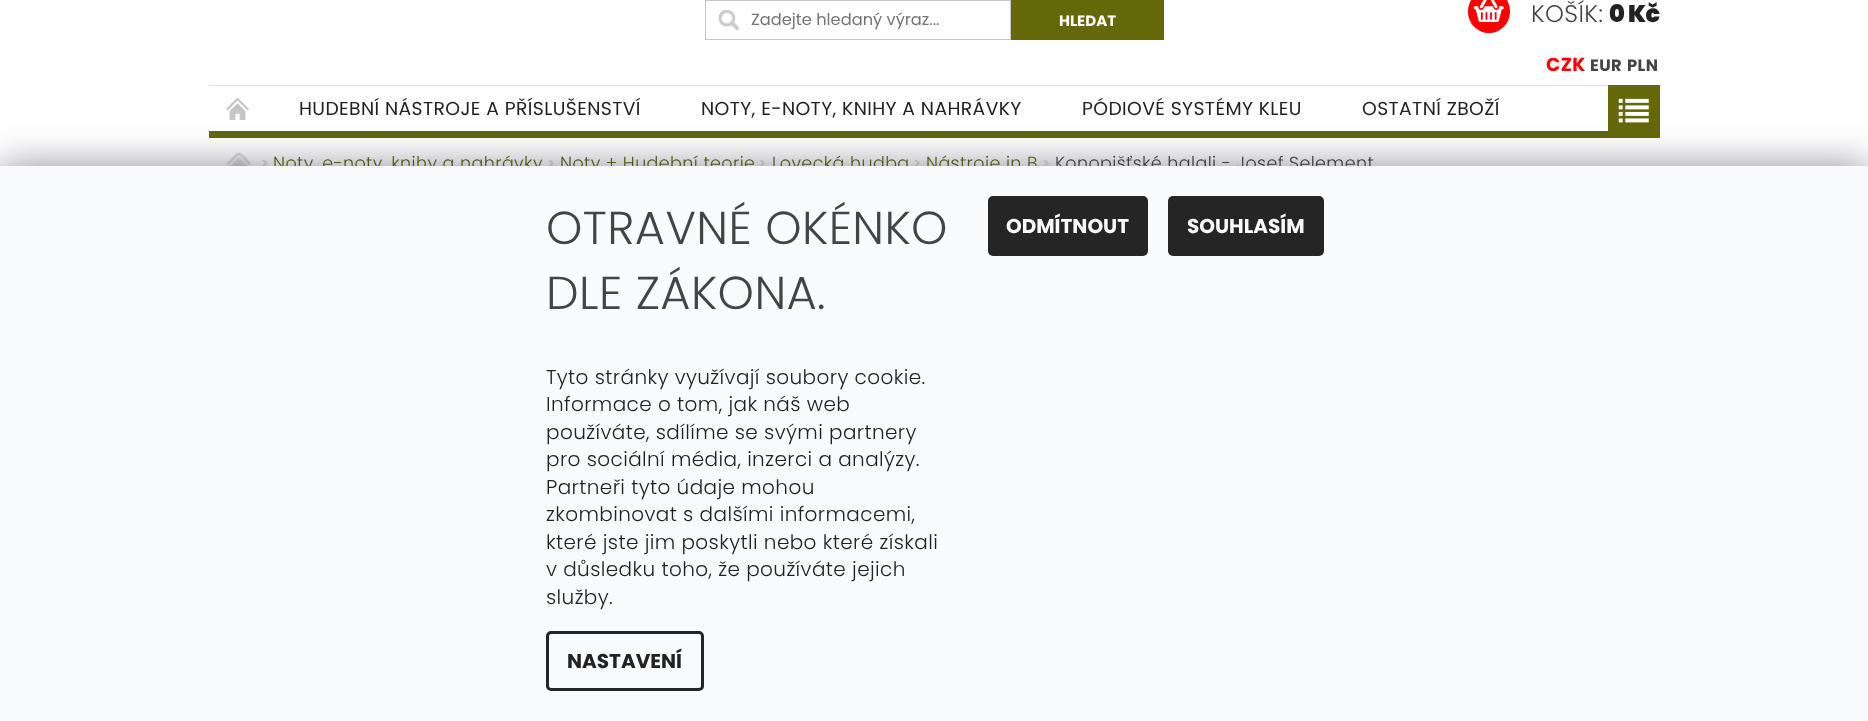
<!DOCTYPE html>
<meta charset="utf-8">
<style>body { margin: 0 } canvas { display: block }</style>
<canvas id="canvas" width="1868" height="721"></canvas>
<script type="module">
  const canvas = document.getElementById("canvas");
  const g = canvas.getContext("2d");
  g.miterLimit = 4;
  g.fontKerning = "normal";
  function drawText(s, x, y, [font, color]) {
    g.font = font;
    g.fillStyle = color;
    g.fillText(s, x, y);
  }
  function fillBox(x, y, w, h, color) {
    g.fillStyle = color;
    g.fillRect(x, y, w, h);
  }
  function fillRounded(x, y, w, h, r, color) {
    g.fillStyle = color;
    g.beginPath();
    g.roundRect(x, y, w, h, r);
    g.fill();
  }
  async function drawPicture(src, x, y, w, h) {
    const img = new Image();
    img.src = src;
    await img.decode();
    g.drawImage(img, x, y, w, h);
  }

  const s1 = ["16.25px Poppins", "#757575"];
  const s2 = ["bold 15px Poppins", "#FFFFFF"];
  const s3 = ["300 24px Poppins", "#444444"];
  const s4 = ["900 24px Poppins", "#222222"];
  const s5 = ["bold 18.75px Poppins", "#FE0000"];
  const s6 = ["bold 16.25px Poppins", "#444444"];
  const s7 = ["18.75px Poppins", "#222222"];
  const s8 = ["300 17.5px Poppins", "#646809"];
  const s9 = ["300 17.5px Poppins", "#444444"];
  const s10 = ["300 46.25px Poppins", "#444444"];
  const s11 = ["300 20px Poppins", "#222222"];
  const s12 = ["bold 20px Poppins", "#222222"];
  const s13 = ["bold 20px Poppins", "#F8FAFB"];

  fillBox(0, 0, 1868, 721, "#FFFFFF");
  fillBox(209, 131, 1399, 7, "#646809");
  await drawPicture("pic1.png", 718, 10, 21, 21);
  g.strokeStyle = "#C6C6C6";
  g.strokeRect(705.5, 0.5, 305, 39);
  drawText("Zadejte hledaný výraz...", 751, 25, s1);
  fillBox(1011, 0, 153, 40, "#646809");
  drawText("HLEDAT", 1059, 26, s2);
  fillRounded(1468, -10, 42, 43, 21, "#FE0000");
  await drawPicture("pic2.png", 1473, 0, 31, 22);
  g.letterSpacing = "0.4px";
  drawText("KOŠÍK:", 1531, 22, s3);
  g.letterSpacing = "-0.5px";
  drawText("0 Kč", 1609, 22, s4);
  g.letterSpacing = "0.4px";
  drawText("CZK", 1546, 71, s5);
  drawText("EUR", 1590, 71, s6);
  drawText("PLN", 1627, 71, s6);
  fillBox(209, 85, 1399, 1, "#E0E0E0");
  await drawPicture("pic3.png", 226, 98, 23, 22);
  drawText("HUDEBNÍ NÁSTROJE A PŘÍSLUŠENSTVÍ", 299, 115, s7);
  drawText("NOTY, E-NOTY, KNIHY A NAHRÁVKY", 701, 115, s7);
  drawText("PÓDIOVÉ SYSTÉMY KLEU", 1082, 115, s7);
  drawText("OSTATNÍ ZBOŽÍ", 1362, 115, s7);
  fillBox(1608, 85, 52, 53, "#646809");
  await drawPicture("pic4.png", 1618, 98, 31, 25);
  await drawPicture("pic5.png", 226, 152, 25, 14);
  await drawPicture("pic6.png", 262, 160, 6, 6);
  drawText("Noty, e-noty, knihy a nahrávky", 273, 169, s8);
  await drawPicture("pic7.png", 548, 160, 6, 6);
  drawText("Noty + Hudební teorie", 560, 169, s8);
  await drawPicture("pic8.png", 760, 160, 5, 6);
  drawText("Lovecká hudba", 772, 169, s8);
  await drawPicture("pic9.png", 915, 160, 5, 6);
  drawText("Nástroje in B", 926, 169, s8);
  await drawPicture("pic10.png", 1043, 160, 6, 6);
  drawText("Konopišťské halali - Josef Selement", 1055, 169, s9);
  g.fillStyle = "rgba(27, 25, 57, 0.5)";
  g.filter = "blur(19px)";
  g.beginPath();
  g.rect(0, 166, 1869, 555);
  g.fill();
  g.filter = "none";
  fillBox(0, 166, 1868, 555, "#F8FAFB");
  drawText("OTRAVNÉ OKÉNKO", 546, 244, s10);
  drawText("DLE ZÁKONA.", 546, 309, s10);
  drawText("Tyto stránky využívají soubory cookie.", 546, 384, s11);
  drawText("Informace o tom, jak náš web", 546, 411, s11);
  drawText("používáte, sdílíme se svými partnery", 546, 439, s11);
  drawText("pro sociální média, inzerci a analýzy.", 546, 466, s11);
  drawText("Partneři tyto údaje mohou", 546, 494, s11);
  drawText("zkombinovat s dalšími informacemi,", 546, 521, s11);
  drawText("které jste jim poskytli nebo které získali", 546, 549, s11);
  drawText("v důsledku toho, že používáte jejich", 546, 576, s11);
  drawText("služby.", 546, 604, s11);
  g.beginPath();
  g.roundRect(547.5, 632.5, 155, 57, 3.5);
  g.strokeStyle = "#252525";
  g.lineWidth = 3;
  g.stroke();
  g.letterSpacing = "0px";
  drawText("NASTAVENÍ", 567, 668, s12);
  fillRounded(988, 196, 160, 60, 5, "#252525");
  drawText("ODMÍTNOUT", 1006, 233, s13);
  fillRounded(1168, 196, 156, 60, 5, "#252525");
  drawText("SOUHLASÍM", 1187, 233, s13);
</script>
